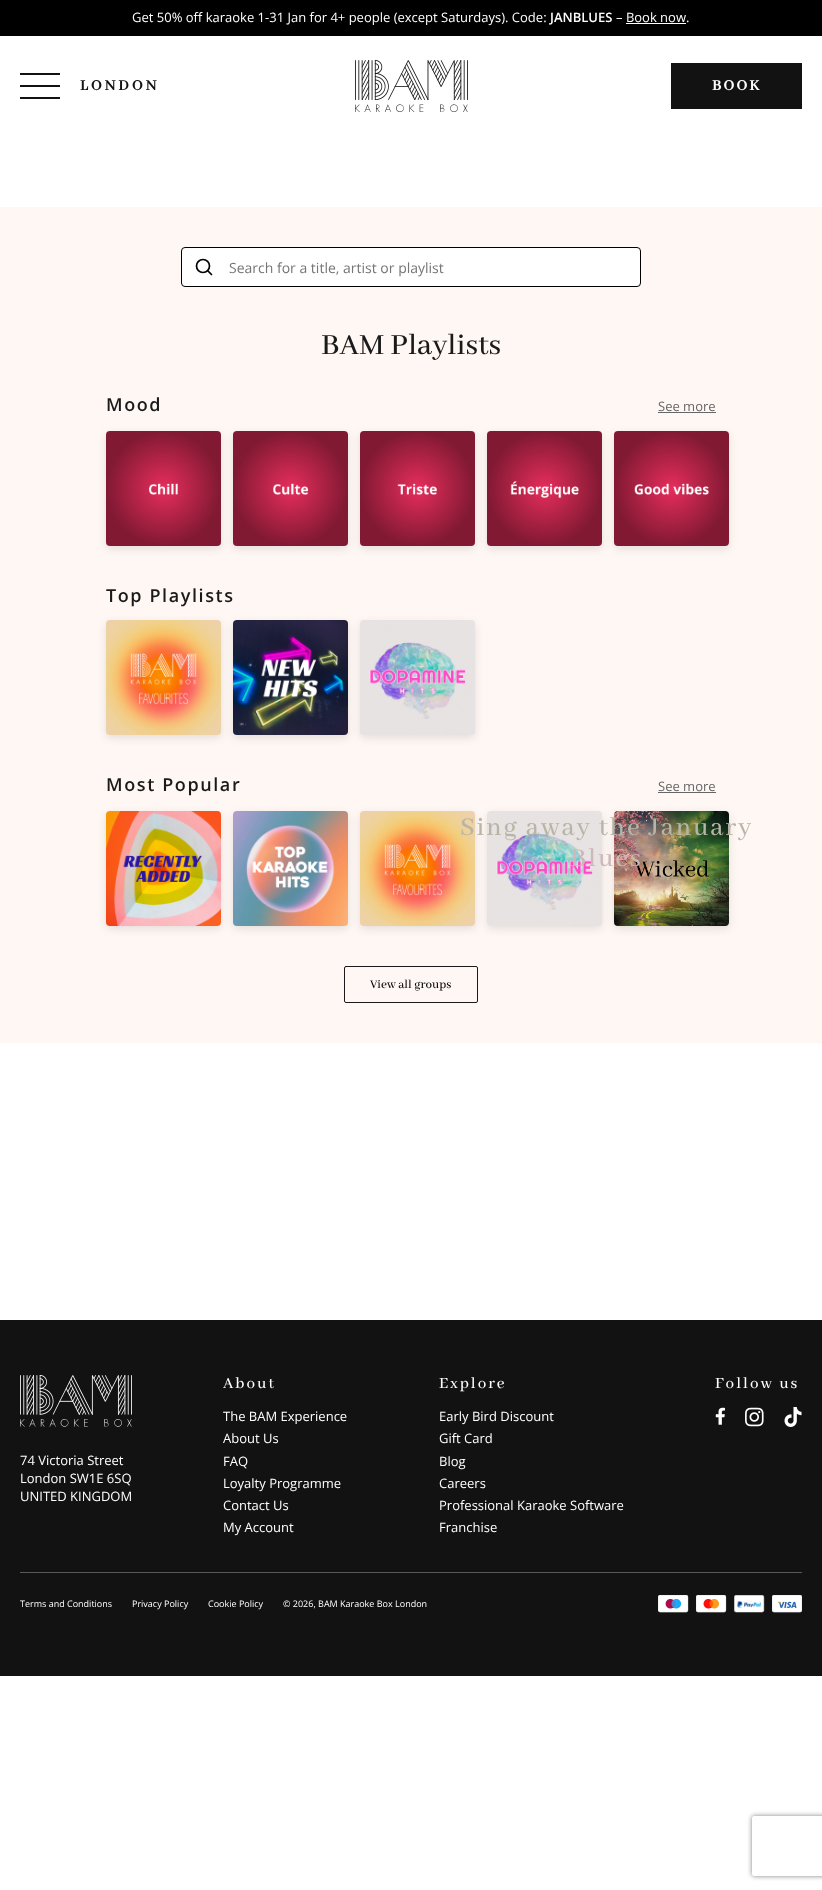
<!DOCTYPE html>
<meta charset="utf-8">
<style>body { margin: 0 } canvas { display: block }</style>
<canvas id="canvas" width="822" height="1890"></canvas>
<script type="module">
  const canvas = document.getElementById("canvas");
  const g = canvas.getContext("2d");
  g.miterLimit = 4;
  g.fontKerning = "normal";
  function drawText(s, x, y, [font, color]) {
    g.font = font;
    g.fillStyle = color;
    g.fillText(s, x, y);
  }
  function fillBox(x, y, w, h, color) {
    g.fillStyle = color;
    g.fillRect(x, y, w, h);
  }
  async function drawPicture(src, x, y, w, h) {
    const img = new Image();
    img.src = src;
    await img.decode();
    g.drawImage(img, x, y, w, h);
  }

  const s1 = ["13px Open Sans", "#FFFFFF"];
  const s2 = ["600 13px Open Sans", "#FFFFFF"];
  const s3 = ["bold 16px Abhaya Libre Medium", "#121212"];
  const s4 = ["bold 16px Abhaya Libre Medium", "#FFFFFF"];
  const s5 = ["14px Open Sans", "#757575"];
  const s6 = ["500 32px Abhaya Libre Medium", "#1A1A1A"];
  const s7 = ["600 18px Open Sans", "#1A1A1A"];
  const s8 = ["13px Open Sans", "#666666"];
  const s9 = ["500 13px Abhaya Libre Medium", "#000000"];
  const s10 = ["500 28px Abhaya Libre Medium", "#B8B4A6"];
  const s11 = ["500 28px Abhaya Libre Medium", "#CDB7B9"];
  const s12 = ["500 17px Abhaya Libre Medium", "#FFFFFF"];
  const s13 = ["9px Open Sans", "#FFFFFF"];

  fillBox(0, 0, 822, 1890, "#FFFFFF");
  fillBox(0, 0, 822, 36, "#000000");
  drawText("Get 50% off karaoke 1-31 Jan for 4+ people (except Saturdays). Code:", 132, 22, s1);
  drawText("JANBLUES", 550, 22, s2);
  drawText("– Book now.", 616, 22, s1);
  fillBox(626, 23, 60, 1, "#FFFFFF");
  fillBox(20, 73, 40, 2, "#121212");
  fillBox(20, 85, 40, 2, "#121212");
  fillBox(20, 97, 40, 2, "#121212");
  g.letterSpacing = "3px";
  drawText("LONDON", 80, 90, s3);
  await drawPicture("pic1.png", 355, 60, 113, 52);
  fillBox(671, 63, 131, 46, "#121212");
  g.letterSpacing = "2px";
  drawText("BOOK", 712, 90, s4);
  fillBox(0, 207, 822, 836, "#FEF7F4");
  g.fillStyle = "#FFFFFF";
  g.beginPath();
  g.roundRect(181.5, 247.5, 459, 39, 3.5);
  g.fill();
  g.strokeStyle = "#000000";
  g.stroke();
  g.beginPath();
  g.arc(203, 266, 6.5, 0, Math.PI * 2);
  g.lineWidth = 1.7;
  g.stroke();
  g.beginPath();
  g.moveTo(211.5, 274.5);
  g.lineTo(208, 271);
  g.lineCap = "round";
  g.lineJoin = "round";
  g.stroke();
  g.letterSpacing = "0px";
  drawText("Search for a title, artist or playlist", 229, 273, s5);
  drawText("BAM Playlists", 321, 354, s6);
  g.letterSpacing = "1.6px";
  drawText("Mood", 106, 411, s7);
  g.letterSpacing = "0px";
  drawText("See more", 658, 411, s8);
  fillBox(658, 412, 58, 1, "#666666");
  g.fillStyle = "rgba(0, 0, 0, 0.1)";
  g.filter = "blur(4px)";
  g.beginPath();
  g.roundRect(106, 434, 115, 115, 4);
  g.fill();
  g.filter = "none";
  await drawPicture("pic2.png", 106, 431, 115, 115);
  g.filter = "blur(4px)";
  g.beginPath();
  g.roundRect(233, 434, 115, 115, 4);
  g.fill();
  g.filter = "none";
  await drawPicture("pic3.png", 233, 431, 115, 115);
  g.filter = "blur(4px)";
  g.beginPath();
  g.roundRect(360, 434, 115, 115, 4);
  g.fill();
  g.filter = "none";
  await drawPicture("pic4.png", 360, 431, 115, 115);
  g.filter = "blur(4px)";
  g.beginPath();
  g.roundRect(487, 434, 115, 115, 4);
  g.fill();
  g.filter = "none";
  await drawPicture("pic5.png", 487, 431, 115, 115);
  g.filter = "blur(4px)";
  g.beginPath();
  g.roundRect(614, 434, 115, 115, 4);
  g.fill();
  g.filter = "none";
  await drawPicture("pic6.png", 614, 431, 115, 115);
  g.letterSpacing = "1.6px";
  drawText("Top Playlists", 106, 602, s7);
  g.fillStyle = "rgba(0, 0, 0, 0.1)";
  g.filter = "blur(4px)";
  g.beginPath();
  g.roundRect(106, 623, 115, 115, 4);
  g.fill();
  g.filter = "none";
  await drawPicture("pic7.png", 106, 620, 115, 115);
  g.filter = "blur(4px)";
  g.beginPath();
  g.roundRect(233, 623, 115, 115, 4);
  g.fill();
  g.filter = "none";
  await drawPicture("pic8.png", 233, 620, 115, 115);
  g.filter = "blur(4px)";
  g.beginPath();
  g.roundRect(360, 623, 115, 115, 4);
  g.fill();
  g.filter = "none";
  await drawPicture("pic9.png", 360, 620, 115, 115);
  drawText("Most Popular", 106, 791, s7);
  g.letterSpacing = "0px";
  drawText("See more", 658, 791, s8);
  fillBox(658, 792, 58, 1, "#666666");
  g.fillStyle = "rgba(0, 0, 0, 0.1)";
  g.filter = "blur(4px)";
  g.beginPath();
  g.roundRect(106, 814, 115, 115, 4);
  g.fill();
  g.filter = "none";
  await drawPicture("pic10.png", 106, 811, 115, 115);
  g.filter = "blur(4px)";
  g.beginPath();
  g.roundRect(233, 814, 115, 115, 4);
  g.fill();
  g.filter = "none";
  await drawPicture("pic11.png", 233, 811, 115, 115);
  g.filter = "blur(4px)";
  g.beginPath();
  g.roundRect(360, 814, 115, 115, 4);
  g.fill();
  g.filter = "none";
  await drawPicture("pic12.png", 360, 811, 115, 115);
  g.filter = "blur(4px)";
  g.beginPath();
  g.roundRect(487, 814, 115, 115, 4);
  g.fill();
  g.filter = "none";
  await drawPicture("pic13.png", 487, 811, 115, 115);
  g.filter = "blur(4px)";
  g.beginPath();
  g.roundRect(614, 814, 115, 115, 4);
  g.fill();
  g.filter = "none";
  await drawPicture("pic14.png", 614, 811, 115, 115);
  g.beginPath();
  g.roundRect(344.5, 966.5, 133, 36, 1.5);
  g.strokeStyle = "#1A1A1A";
  g.lineWidth = 1;
  g.lineJoin = "miter";
  g.stroke();
  drawText("View all groups", 370, 988, s9);
  g.letterSpacing = "1.8px";
  drawText("Sing away the January", 460, 835, s10);
  drawText("Blues", 570, 866, s11);
  fillBox(0, 1320, 822, 356, "#121212");
  g.letterSpacing = "2px";
  drawText("About", 223, 1388, s12);
  g.letterSpacing = "0px";
  drawText("The BAM Experience", 223, 1421, s1);
  drawText("About Us", 223, 1443, s1);
  drawText("FAQ", 223, 1466, s1);
  drawText("Loyalty Programme", 223, 1488, s1);
  drawText("Contact Us", 223, 1510, s1);
  drawText("My Account", 223, 1532, s1);
  g.letterSpacing = "2px";
  drawText("Explore", 439, 1388, s12);
  g.letterSpacing = "0px";
  drawText("Early Bird Discount", 439, 1421, s1);
  drawText("Gift Card", 439, 1443, s1);
  drawText("Blog", 439, 1466, s1);
  drawText("Careers", 439, 1488, s1);
  drawText("Professional Karaoke Software", 439, 1510, s1);
  drawText("Franchise", 439, 1532, s1);
  g.letterSpacing = "2px";
  drawText("Follow us", 715, 1388, s12);
  await drawPicture("pic15.png", 715, 1407, 10, 18);
  await drawPicture("pic16.png", 745, 1407, 19, 20);
  await drawPicture("pic17.png", 784, 1407, 18, 20);
  await drawPicture("pic18.png", 20, 1375, 112, 52);
  g.letterSpacing = "0px";
  drawText("74 Victoria Street", 20, 1465, s1);
  drawText("London SW1E 6SQ", 20, 1483, s1);
  drawText("UNITED KINGDOM", 20, 1501, s1);
  fillBox(20, 1572, 782, 1, "#595959");
  drawText("Terms and Conditions", 20, 1607, s13);
  drawText("Privacy Policy", 132, 1607, s13);
  drawText("Cookie Policy", 208, 1607, s13);
  drawText("© 2026, BAM Karaoke Box London", 283, 1607, s13);
  await drawPicture("pic19.png", 658, 1595, 31, 18);
  await drawPicture("pic20.png", 696, 1595, 31, 18);
  await drawPicture("pic21.png", 734, 1595, 31, 18);
  await drawPicture("pic22.png", 772, 1595, 30, 18);
  g.save();
  g.beginPath();
  g.moveTo(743, 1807);
  g.lineTo(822, 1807);
  g.lineTo(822, 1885);
  g.lineTo(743, 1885);
  g.closePath();
  g.moveTo(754, 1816);
  g.lineTo(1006, 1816);
  g.bezierCurveTo(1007, 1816, 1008, 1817, 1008, 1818);
  g.lineTo(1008, 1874);
  g.bezierCurveTo(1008, 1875, 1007, 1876, 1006, 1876);
  g.lineTo(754, 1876);
  g.bezierCurveTo(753, 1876, 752, 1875, 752, 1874);
  g.lineTo(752, 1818);
  g.bezierCurveTo(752, 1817, 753, 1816, 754, 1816);
  g.closePath();
  g.clip("evenodd");
  g.fillStyle = "#808080";
  g.filter = "blur(2.5px)";
  g.beginPath();
  g.roundRect(752, 1816, 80, 60, 2);
  g.fill();
  g.filter = "none";
  g.restore();
</script>
